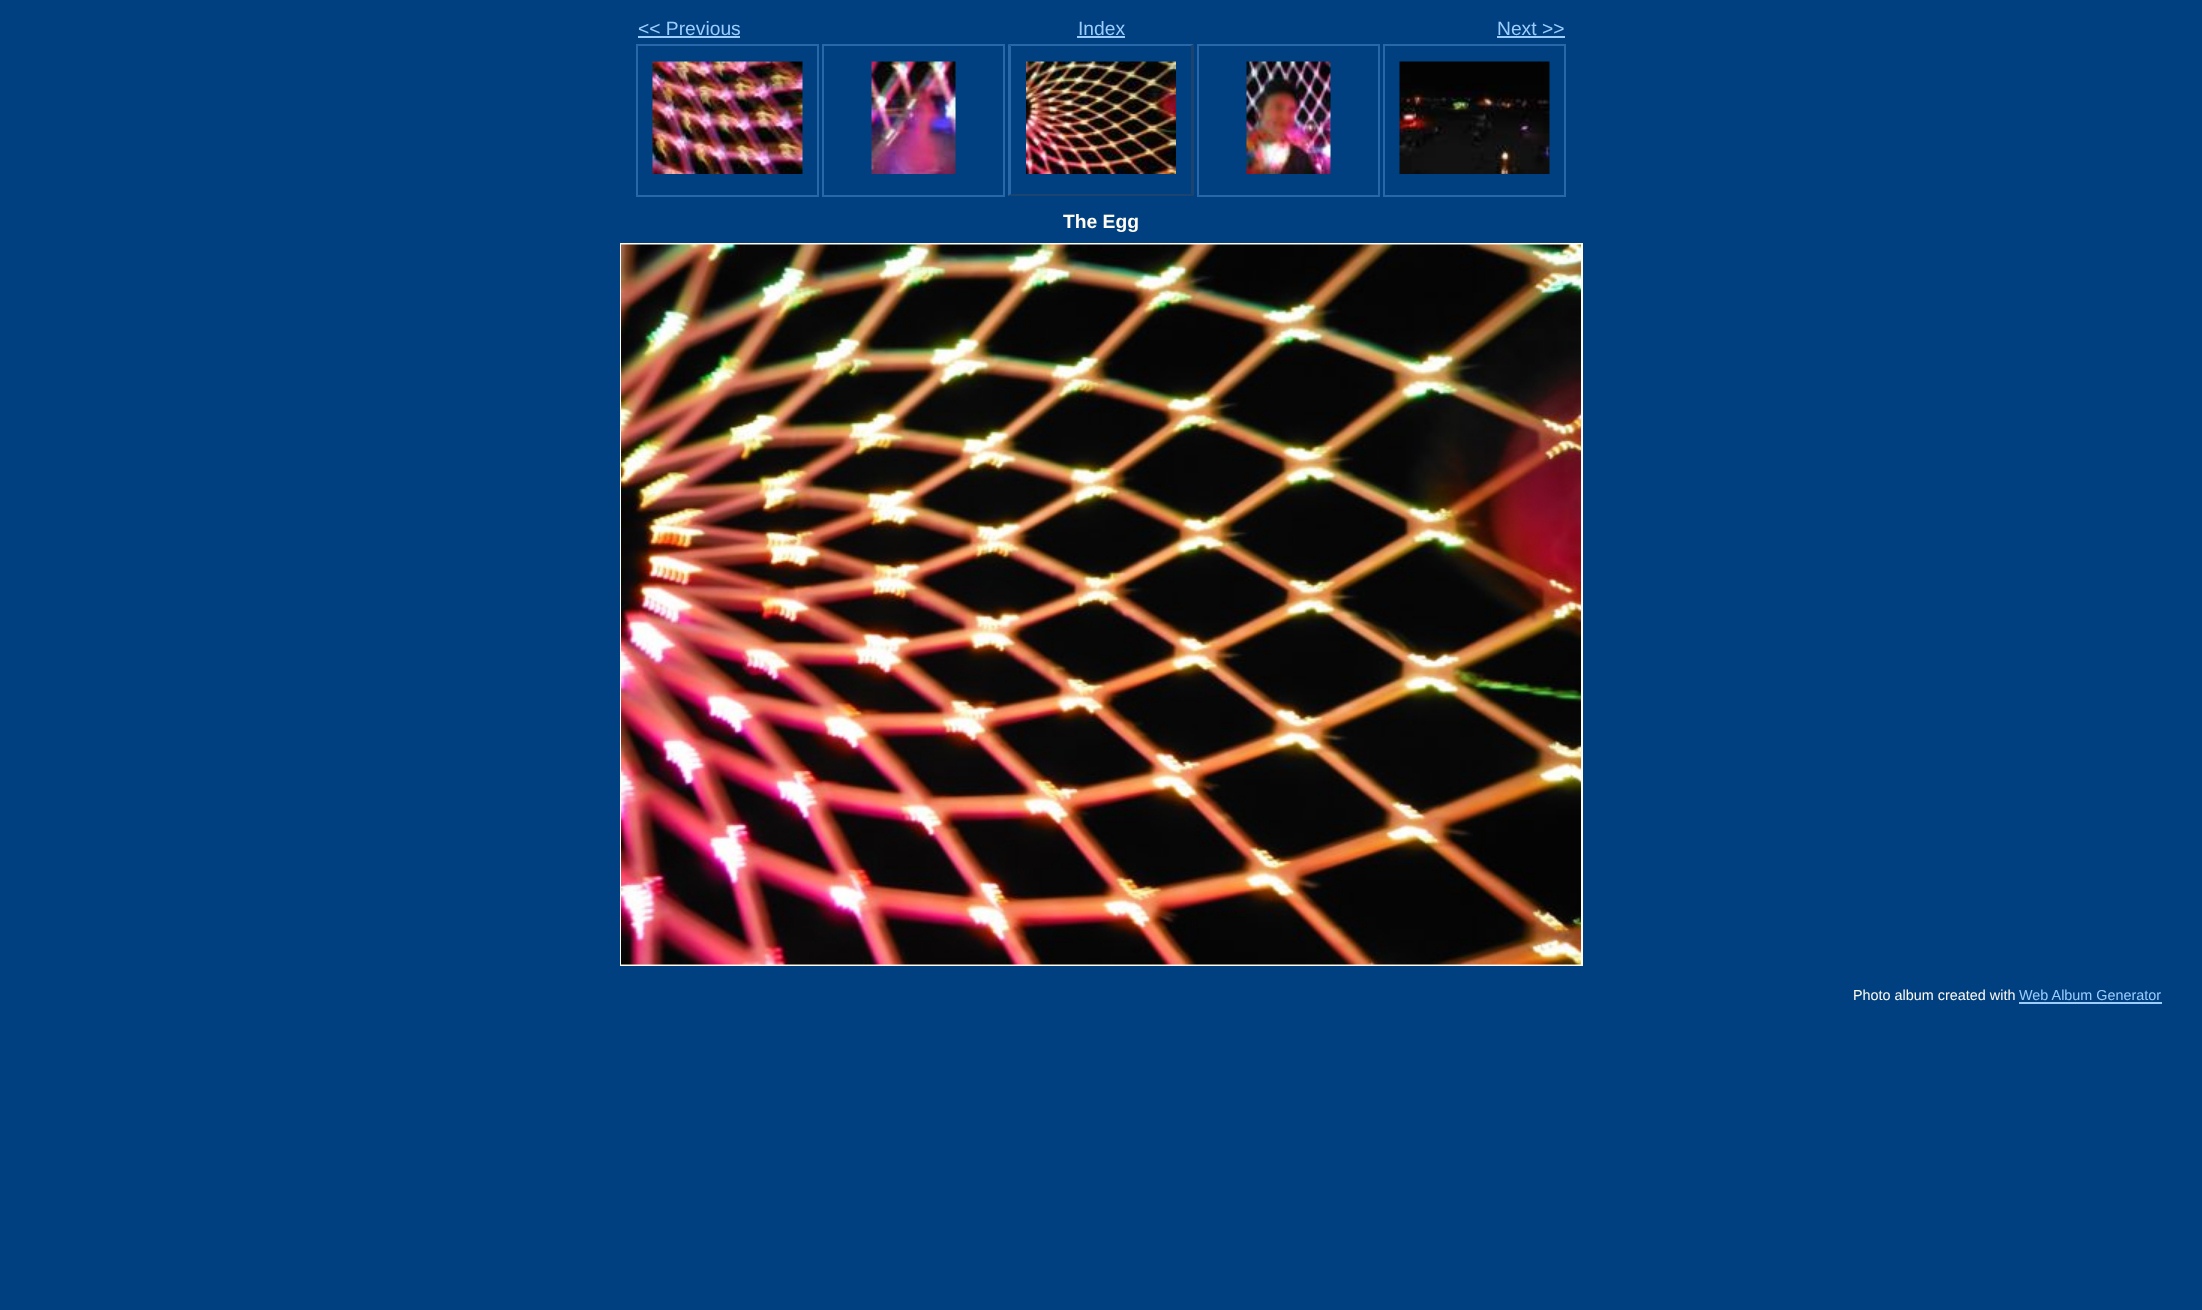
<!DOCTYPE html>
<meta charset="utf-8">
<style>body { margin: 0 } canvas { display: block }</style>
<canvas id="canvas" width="2202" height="1310"></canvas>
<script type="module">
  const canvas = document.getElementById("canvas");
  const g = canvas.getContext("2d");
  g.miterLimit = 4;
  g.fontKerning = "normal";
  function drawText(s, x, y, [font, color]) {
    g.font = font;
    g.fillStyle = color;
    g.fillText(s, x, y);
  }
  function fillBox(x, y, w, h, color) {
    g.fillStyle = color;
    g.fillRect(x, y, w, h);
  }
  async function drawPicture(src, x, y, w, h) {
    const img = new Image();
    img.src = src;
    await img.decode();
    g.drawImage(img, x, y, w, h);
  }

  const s1 = ["19.25px Liberation Sans", "#9BCDFF"];
  const s2 = ["bold 19.25px Liberation Sans", "#FFFBF0"];
  const s3 = ["14.4px Liberation Sans", "#FFFBF0"];
  const s4 = ["14.4px Liberation Sans", "#9BCDFF"];

  fillBox(0, 0, 2202, 1310, "#004080");
  drawText("<< Previous", 638, 35, s1);
  fillBox(638, 36, 102, 2, "#9BCDFF");
  drawText("Index", 1078, 35, s1);
  fillBox(1077, 36, 48, 2, "#9BCDFF");
  drawText("Next >>", 1497, 35, s1);
  fillBox(1497, 36, 68, 2, "#9BCDFF");
  g.strokeStyle = "#2868A8";
  g.lineWidth = 2;
  g.strokeRect(637, 45, 181, 151);
  await drawPicture("pic1.png", 652, 61, 151, 113);
  g.strokeRect(823, 45, 181, 151);
  await drawPicture("pic2.png", 871, 61, 85, 113);
  g.fillStyle = "#2868A8";
  g.beginPath();
  g.moveTo(1008, 44);
  g.lineTo(1194, 44);
  g.lineTo(1191, 46);
  g.lineTo(1011, 46);
  g.closePath();
  g.fill();
  g.fillStyle = "#1B4570";
  g.beginPath();
  g.moveTo(1194, 44);
  g.lineTo(1194, 196);
  g.lineTo(1191, 194);
  g.lineTo(1191, 46);
  g.closePath();
  g.fill();
  g.beginPath();
  g.moveTo(1194, 196);
  g.lineTo(1008, 196);
  g.lineTo(1011, 194);
  g.lineTo(1191, 194);
  g.closePath();
  g.fill();
  g.fillStyle = "#2868A8";
  g.beginPath();
  g.moveTo(1008, 196);
  g.lineTo(1008, 44);
  g.lineTo(1011, 46);
  g.lineTo(1011, 194);
  g.closePath();
  g.fill();
  await drawPicture("pic3.png", 1026, 61, 150, 113);
  g.strokeRect(1198, 45, 181, 151);
  await drawPicture("pic4.png", 1246, 61, 85, 113);
  g.strokeRect(1384, 45, 181, 151);
  await drawPicture("pic5.png", 1399, 61, 151, 113);
  drawText("The Egg", 1063, 228, s2);
  g.strokeStyle = "#FFFBF0";
  g.strokeRect(621, 244, 961, 721);
  await drawPicture("pic6.png", 621, 244, 960, 721);
  drawText("Photo album created with", 1853, 1000, s3);
  drawText("Web Album Generator", 2019, 1000, s4);
  fillBox(2019, 1002, 143, 2, "#9BCDFF");
</script>
